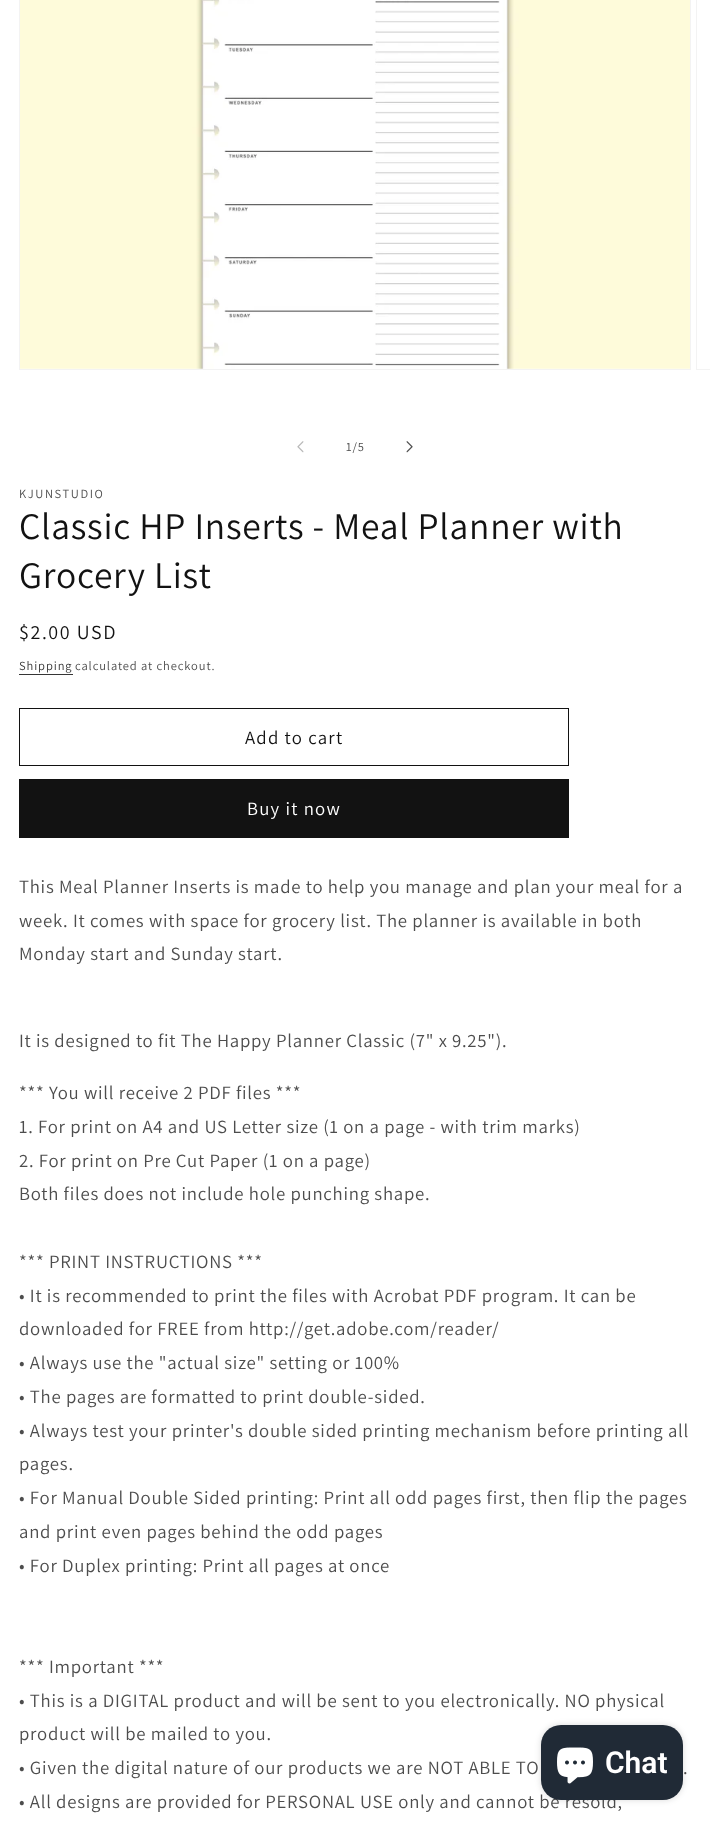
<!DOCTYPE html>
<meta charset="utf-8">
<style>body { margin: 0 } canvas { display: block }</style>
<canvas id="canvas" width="710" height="1826"></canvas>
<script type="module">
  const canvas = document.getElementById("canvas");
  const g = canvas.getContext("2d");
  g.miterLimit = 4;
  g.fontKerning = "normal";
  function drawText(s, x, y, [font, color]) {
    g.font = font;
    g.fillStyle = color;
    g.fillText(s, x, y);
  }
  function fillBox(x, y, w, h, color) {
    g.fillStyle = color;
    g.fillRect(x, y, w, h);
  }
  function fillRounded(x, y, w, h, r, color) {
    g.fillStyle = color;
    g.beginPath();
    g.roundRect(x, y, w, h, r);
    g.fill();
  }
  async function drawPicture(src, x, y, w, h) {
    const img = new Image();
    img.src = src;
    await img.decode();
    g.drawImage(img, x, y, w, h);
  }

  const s1 = ["12.5px Assistant", "#4D4D4D"];
  const s2 = ["37.5px Assistant", "#121212"];
  const s3 = ["20px Assistant", "#121212"];
  const s4 = ["12.5px Assistant", "#363636"];
  const s5 = ["18.75px Assistant", "#121212"];
  const s6 = ["18.75px Assistant", "#FFFFFF"];
  const s7 = ["18.75px Assistant", "#4D4D4D"];
  const s8 = ["600 30px Roboto", "#FFFFFF"];

  fillBox(0, 0, 710, 1826, "#FFFFFF");
  g.strokeStyle = "#F3F3F3";
  g.strokeRect(19.5, -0.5, 671, 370);
  await drawPicture("pic1.png", 20, 0, 670, 369);
  g.strokeRect(696.5, -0.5, 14, 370);
  await drawPicture("pic2.png", 297, 441, 7, 12);
  g.letterSpacing = "0.9px";
  drawText("1/5", 346, 451, s1);
  await drawPicture("pic3.png", 406, 441, 7, 12);
  g.letterSpacing = "1.6px";
  drawText("KJUNSTUDIO", 19, 498, s1);
  g.letterSpacing = "0.75px";
  drawText("Classic HP Inserts - Meal Planner with", 19, 539, s2);
  drawText("Grocery List", 19, 588, s2);
  g.letterSpacing = "1.6px";
  drawText("$2.00 USD", 19, 639, s3);
  g.letterSpacing = "0.9px";
  drawText("Shipping", 19, 670, s4);
  fillBox(19, 674, 54, 1, "#363636");
  drawText("calculated at checkout.", 75, 670, s1);
  g.strokeStyle = "#121212";
  g.strokeRect(19.5, 708.5, 549, 57);
  g.letterSpacing = "1.25px";
  drawText("Add to cart", 245, 744, s5);
  fillBox(19, 779, 550, 59, "#121212");
  drawText("Buy it now", 247, 815, s6);
  g.letterSpacing = "0.75px";
  drawText("This Meal Planner Inserts is made to help you manage and plan your meal for a", 19, 893, s7);
  drawText("week. It comes with space for grocery list. The planner is available in both", 19, 927, s7);
  drawText("Monday start and Sunday start.", 19, 960, s7);
  drawText("It is designed to fit The Happy Planner Classic (7\" x 9.25\").", 19, 1047, s7);
  drawText("*** You will receive 2 PDF files ***", 19, 1099, s7);
  drawText("1. For print on A4 and US Letter size (1 on a page - with trim marks)", 19, 1133, s7);
  drawText("2. For print on Pre Cut Paper (1 on a page)", 19, 1167, s7);
  drawText("Both files does not include hole punching shape.", 19, 1200, s7);
  drawText("*** PRINT INSTRUCTIONS ***", 19, 1268, s7);
  drawText("• It is recommended to print the files with Acrobat PDF program. It can be", 19, 1302, s7);
  drawText("downloaded for FREE from http://get.adobe.com/reader/", 19, 1335, s7);
  drawText("• Always use the \"actual size\" setting or 100%", 19, 1369, s7);
  drawText("• The pages are formatted to print double-sided.", 19, 1403, s7);
  drawText("• Always test your printer's double sided printing mechanism before printing all", 19, 1437, s7);
  drawText("pages.", 19, 1470, s7);
  drawText("• For Manual Double Sided printing: Print all odd pages first, then flip the pages", 19, 1504, s7);
  drawText("and print even pages behind the odd pages", 19, 1538, s7);
  drawText("• For Duplex printing: Print all pages at once", 19, 1572, s7);
  drawText("*** Important ***", 19, 1673, s7);
  drawText("• This is a DIGITAL product and will be sent to you electronically. NO physical", 19, 1707, s7);
  drawText("product will be mailed to you.", 19, 1740, s7);
  drawText("• Given the digital nature of our products we are NOT ABLE TO", 19, 1774, s7);
  drawText(".", 683, 1774, s7);
  drawText("• All designs are provided for PERSONAL USE only and cannot be resold,", 19, 1808, s7);
  g.fillStyle = "rgba(0, 0, 0, 0.15)";
  g.filter = "blur(3px)";
  g.beginPath();
  g.roundRect(541, 1725, 142, 75, 20);
  g.fill();
  g.filter = "none";
  fillRounded(541, 1725, 142, 75, 20, "#202A36");
  await drawPicture("pic4.png", 557, 1747, 36, 37);
  g.letterSpacing = "0px";
  drawText("Chat", 605, 1773, s8);
</script>
